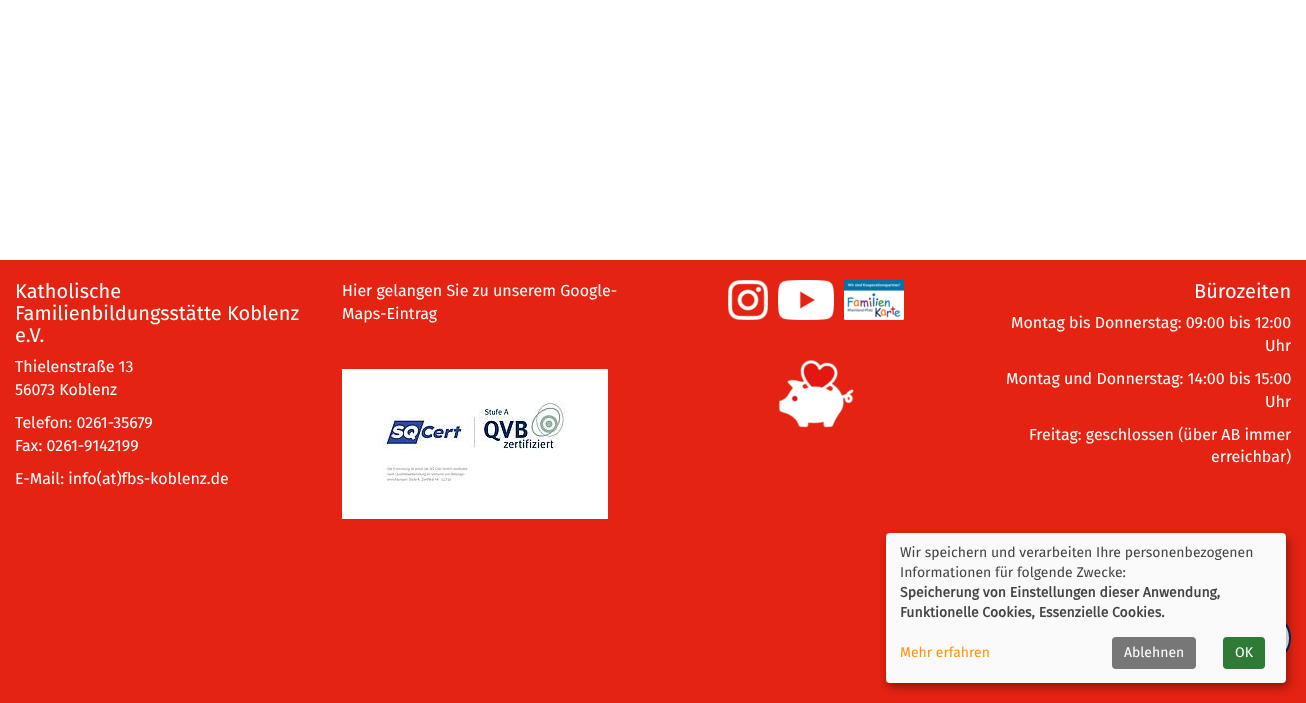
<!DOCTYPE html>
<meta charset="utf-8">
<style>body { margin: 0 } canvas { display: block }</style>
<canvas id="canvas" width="1306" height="703"></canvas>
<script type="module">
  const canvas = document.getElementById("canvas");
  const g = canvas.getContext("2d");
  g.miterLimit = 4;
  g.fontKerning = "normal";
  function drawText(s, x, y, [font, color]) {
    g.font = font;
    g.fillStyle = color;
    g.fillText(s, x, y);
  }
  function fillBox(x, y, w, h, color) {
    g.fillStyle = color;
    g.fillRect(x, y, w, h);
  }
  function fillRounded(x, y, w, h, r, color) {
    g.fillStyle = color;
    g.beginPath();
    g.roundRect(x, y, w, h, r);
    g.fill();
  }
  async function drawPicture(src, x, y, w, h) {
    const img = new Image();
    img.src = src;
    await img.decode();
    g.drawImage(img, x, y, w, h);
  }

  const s1 = ["20px Fira Sans", "#FFFFFF"];
  const s2 = ["16px Fira Sans", "#FFFFFF"];
  const s3 = ["14px Fira Sans", "#444444"];
  const s4 = ["bold 14px Fira Sans", "#444444"];
  const s5 = ["14px Fira Sans", "#FD930C"];
  const s6 = ["14px Fira Sans", "#FFFFFF"];

  fillBox(0, 0, 1306, 703, "#FFFFFF");
  fillBox(0, 260, 1306, 443, "#E42312");
  drawText("Katholische", 15, 298, s1);
  drawText("Familienbildungsstätte Koblenz", 15, 320, s1);
  drawText("e.V.", 15, 342, s1);
  drawText("Thielenstraße 13", 15, 372, s2);
  drawText("56073 Koblenz", 15, 395, s2);
  drawText("Telefon: 0261-35679", 15, 428, s2);
  drawText("Fax: 0261-9142199", 15, 451, s2);
  drawText("E-Mail: info(at)fbs-koblenz.de", 15, 484, s2);
  drawText("Hier gelangen Sie zu unserem Google-", 342, 296, s2);
  drawText("Maps-Eintrag", 342, 319, s2);
  await drawPicture("pic1.png", 342, 369, 266, 150);
  await drawPicture("pic2.png", 728, 280, 40, 40);
  await drawPicture("pic3.png", 778, 280, 56, 40);
  await drawPicture("pic4.png", 844, 280, 60, 40);
  await drawPicture("pic5.png", 778, 360, 76, 68);
  drawText("Bürozeiten", 1194, 298, s1);
  drawText("Montag bis Donnerstag: 09:00 bis 12:00", 1011, 328, s2);
  drawText("Uhr", 1265, 351, s2);
  drawText("Montag und Donnerstag: 14:00 bis 15:00", 1006, 384, s2);
  drawText("Uhr", 1265, 407, s2);
  drawText("Freitag: geschlossen (über AB immer", 1029, 440, s2);
  drawText("erreichbar)", 1211, 462, s2);
  g.beginPath();
  g.arc(1266, 638, 24, 0, Math.PI * 2);
  g.fill();
  g.strokeStyle = "#00285A";
  g.lineWidth = 2;
  g.stroke();
  g.fillStyle = "rgba(0, 0, 0, 0.19)";
  g.filter = "blur(5px)";
  g.beginPath();
  g.roundRect(891, 538, 400, 150, 4);
  g.fill();
  g.filter = "none";
  g.fillStyle = "rgba(0, 0, 0, 0.2)";
  g.filter = "blur(3px)";
  g.beginPath();
  g.roundRect(886, 537, 400, 150, 4);
  g.fill();
  g.filter = "none";
  fillRounded(886, 533, 400, 150, 4, "#FAFAFA");
  drawText("Wir speichern und verarbeiten Ihre personenbezogenen", 900, 557, s3);
  drawText("Informationen für folgende Zwecke:", 900, 577, s3);
  drawText("Speicherung von Einstellungen dieser Anwendung,", 900, 597, s4);
  drawText("Funktionelle Cookies, Essenzielle Cookies.", 900, 617, s4);
  drawText("Mehr erfahren", 900, 657, s5);
  fillRounded(1112, 637, 84, 32, 4, "#777777");
  drawText("Ablehnen", 1124, 657, s6);
  fillRounded(1223, 637, 42, 32, 4, "#2F7A35");
  drawText("OK", 1235, 657, s6);
</script>
